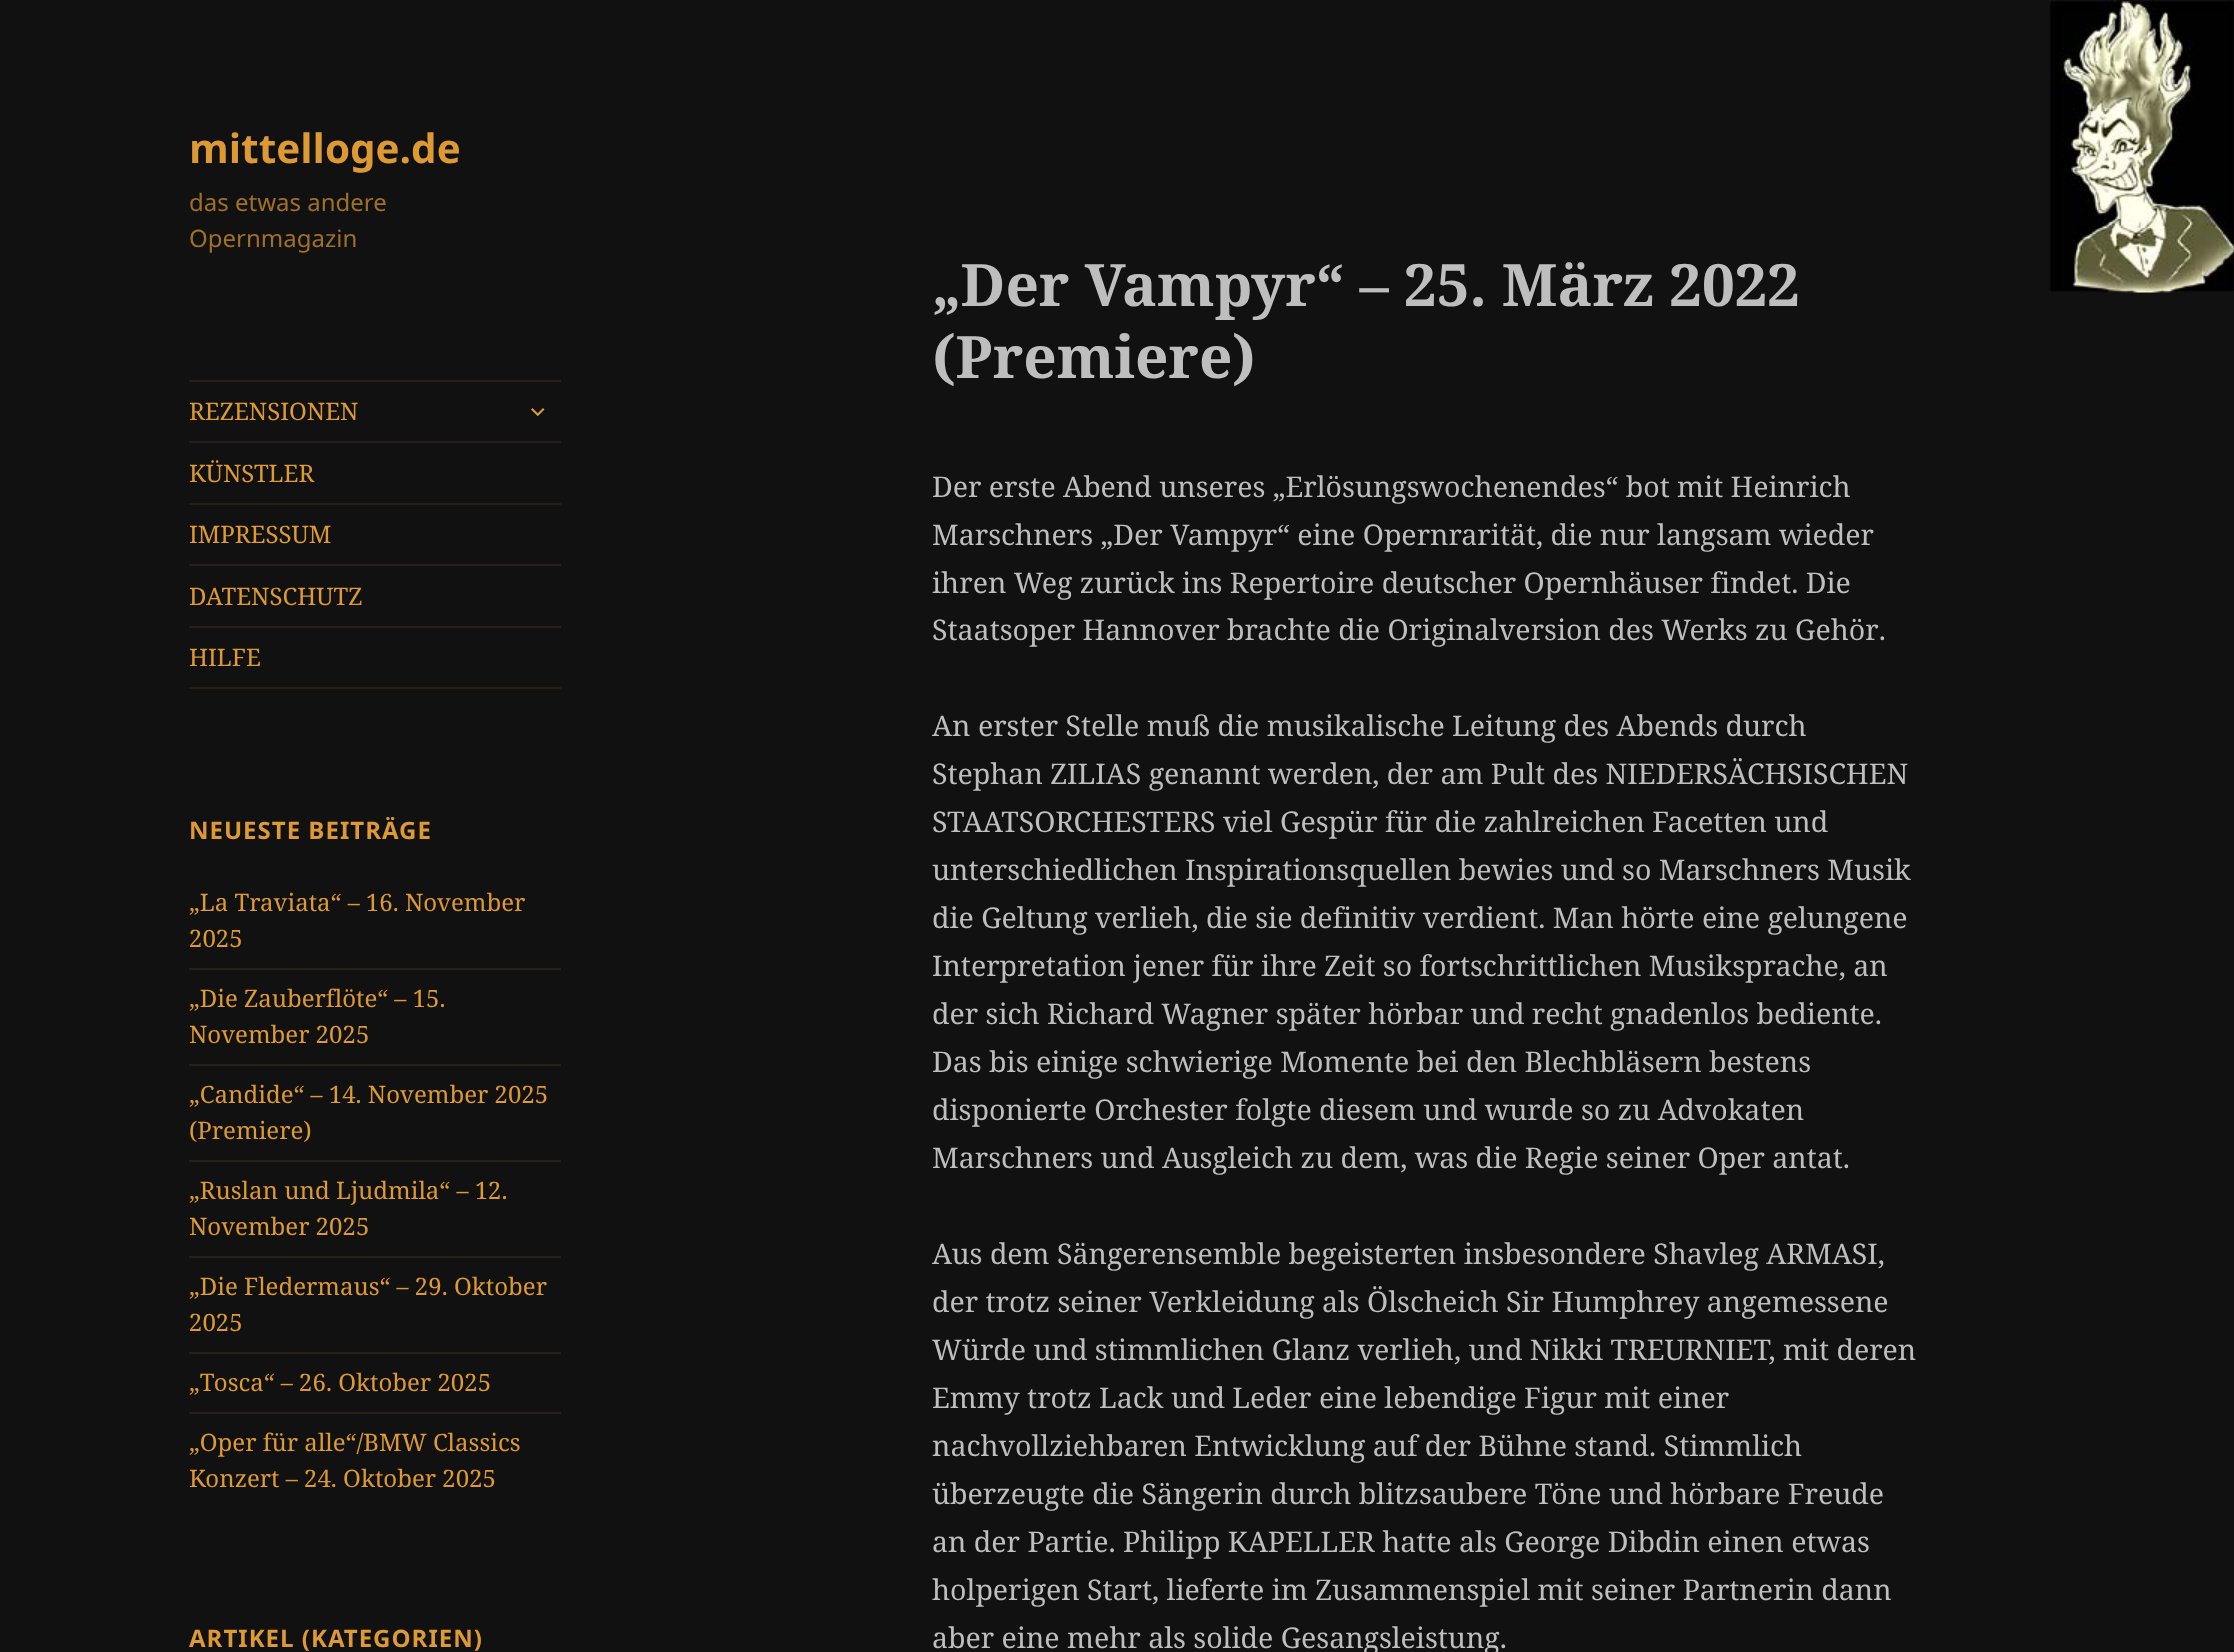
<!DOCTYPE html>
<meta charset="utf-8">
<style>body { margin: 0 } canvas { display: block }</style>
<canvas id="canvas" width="2234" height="1652"></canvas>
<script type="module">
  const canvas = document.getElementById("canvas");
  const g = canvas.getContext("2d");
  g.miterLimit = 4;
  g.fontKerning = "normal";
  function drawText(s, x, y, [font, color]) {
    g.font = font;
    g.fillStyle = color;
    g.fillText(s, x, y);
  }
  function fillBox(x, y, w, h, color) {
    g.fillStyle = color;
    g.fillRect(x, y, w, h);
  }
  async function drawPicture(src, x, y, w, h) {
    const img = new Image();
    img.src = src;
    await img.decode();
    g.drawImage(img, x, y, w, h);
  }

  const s1 = ["bold 40.5px Noto Sans", "#DD9933"];
  const s2 = ["24px Noto Sans", "#A07029"];
  const s3 = ["24px Noto Serif", "#DD9933"];
  const s4 = ["bold 24px Noto Sans", "#DD9933"];
  const s5 = ["bold 58.5px Noto Serif", "#BEBEBE"];
  const s6 = ["28.5px Noto Serif", "#BEBEBE"];

  fillBox(0, 0, 2234, 1652, "#111111");
  await drawPicture("pic1.png", 2049, 0, 185, 293);
  drawText("mittelloge.de", 189, 163, s1);
  drawText("das etwas andere", 189, 211, s2);
  drawText("Opernmagazin", 189, 247, s2);
  fillBox(189, 380, 372, 2, "#251F14");
  fillBox(189, 687, 372, 2, "#251F14");
  drawText("REZENSIONEN", 189, 420, s3);
  await drawPicture("pic2.png", 531, 408, 14, 9);
  fillBox(189, 441, 372, 2, "#251F14");
  drawText("KÜNSTLER", 189, 482, s3);
  fillBox(189, 503, 372, 2, "#251F14");
  drawText("IMPRESSUM", 189, 543, s3);
  fillBox(189, 564, 372, 2, "#251F14");
  drawText("DATENSCHUTZ", 189, 605, s3);
  fillBox(189, 626, 372, 2, "#251F14");
  drawText("HILFE", 189, 666, s3);
  g.letterSpacing = "1px";
  drawText("NEUESTE BEITRÄGE", 189, 839, s4);
  g.letterSpacing = "0px";
  drawText("„La Traviata“ – 16. November", 189, 911, s3);
  drawText("2025", 189, 947, s3);
  fillBox(189, 968, 372, 2, "#251F14");
  drawText("„Die Zauberflöte“ – 15.", 189, 1007, s3);
  drawText("November 2025", 189, 1043, s3);
  fillBox(189, 1064, 372, 2, "#251F14");
  drawText("„Candide“ – 14. November 2025", 189, 1103, s3);
  drawText("(Premiere)", 189, 1139, s3);
  fillBox(189, 1160, 372, 2, "#251F14");
  drawText("„Ruslan und Ljudmila“ – 12.", 189, 1199, s3);
  drawText("November 2025", 189, 1235, s3);
  fillBox(189, 1256, 372, 2, "#251F14");
  drawText("„Die Fledermaus“ – 29. Oktober", 189, 1295, s3);
  drawText("2025", 189, 1331, s3);
  fillBox(189, 1352, 372, 2, "#251F14");
  drawText("„Tosca“ – 26. Oktober 2025", 189, 1391, s3);
  fillBox(189, 1412, 372, 2, "#251F14");
  drawText("„Oper für alle“/BMW Classics", 189, 1451, s3);
  drawText("Konzert – 24. Oktober 2025", 189, 1487, s3);
  g.letterSpacing = "1px";
  drawText("ARTIKEL (KATEGORIEN)", 189, 1647, s4);
  g.letterSpacing = "0px";
  drawText("„Der Vampyr“ – 25. März 2022", 932, 306, s5);
  drawText("(Premiere)", 932, 378, s5);
  drawText("Der erste Abend unseres „Erlösungswochenendes“ bot mit Heinrich", 932, 497, s6);
  drawText("Marschners „Der Vampyr“ eine Opernrarität, die nur langsam wieder", 932, 545, s6);
  drawText("ihren Weg zurück ins Repertoire deutscher Opernhäuser findet. Die", 932, 593, s6);
  drawText("Staatsoper Hannover brachte die Originalversion des Werks zu Gehör.", 932, 640, s6);
  drawText("An erster Stelle muß die musikalische Leitung des Abends durch", 932, 736, s6);
  drawText("Stephan ZILIAS genannt werden, der am Pult des NIEDERSÄCHSISCHEN", 932, 784, s6);
  drawText("STAATSORCHESTERS viel Gespür für die zahlreichen Facetten und", 932, 832, s6);
  drawText("unterschiedlichen Inspirationsquellen bewies und so Marschners Musik", 932, 880, s6);
  drawText("die Geltung verlieh, die sie definitiv verdient. Man hörte eine gelungene", 932, 928, s6);
  drawText("Interpretation jener für ihre Zeit so fortschrittlichen Musiksprache, an", 932, 976, s6);
  drawText("der sich Richard Wagner später hörbar und recht gnadenlos bediente.", 932, 1024, s6);
  drawText("Das bis einige schwierige Momente bei den Blechbläsern bestens", 932, 1072, s6);
  drawText("disponierte Orchester folgte diesem und wurde so zu Advokaten", 932, 1120, s6);
  drawText("Marschners und Ausgleich zu dem, was die Regie seiner Oper antat.", 932, 1168, s6);
  drawText("Aus dem Sängerensemble begeisterten insbesondere Shavleg ARMASI,", 932, 1264, s6);
  drawText("der trotz seiner Verkleidung als Ölscheich Sir Humphrey angemessene", 932, 1312, s6);
  drawText("Würde und stimmlichen Glanz verlieh, und Nikki TREURNIET, mit deren", 932, 1360, s6);
  drawText("Emmy trotz Lack und Leder eine lebendige Figur mit einer", 932, 1408, s6);
  drawText("nachvollziehbaren Entwicklung auf der Bühne stand. Stimmlich", 932, 1456, s6);
  drawText("überzeugte die Sängerin durch blitzsaubere Töne und hörbare Freude", 932, 1504, s6);
  drawText("an der Partie. Philipp KAPELLER hatte als George Dibdin einen etwas", 932, 1552, s6);
  drawText("holperigen Start, lieferte im Zusammenspiel mit seiner Partnerin dann", 932, 1600, s6);
  drawText("aber eine mehr als solide Gesangsleistung.", 932, 1648, s6);
</script>
